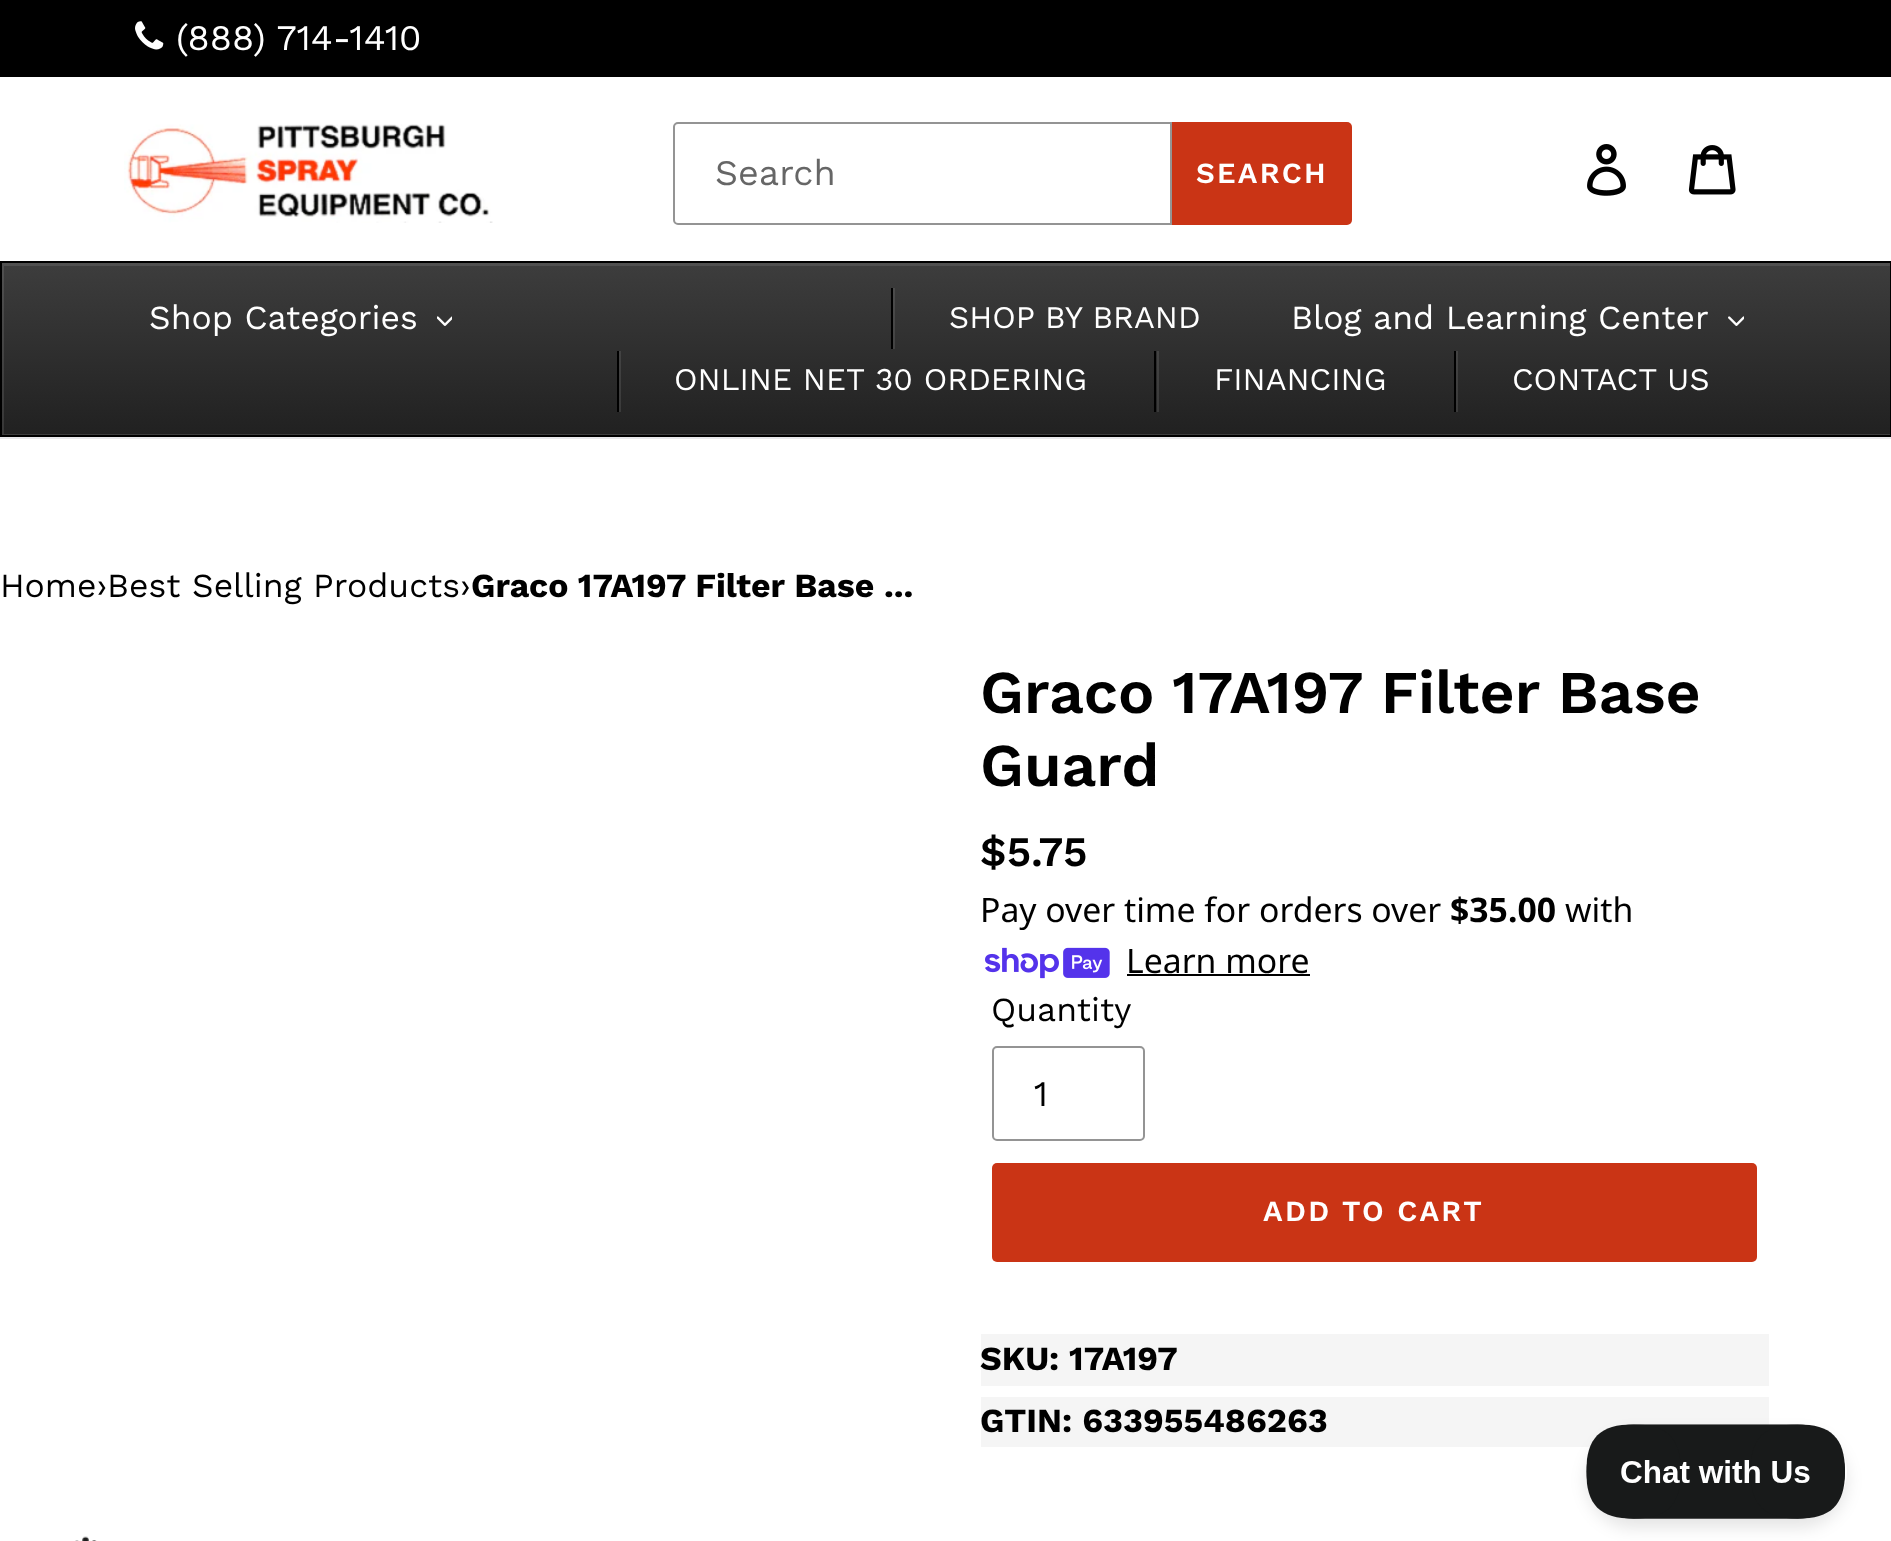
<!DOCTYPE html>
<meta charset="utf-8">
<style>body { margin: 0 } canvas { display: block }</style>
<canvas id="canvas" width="1891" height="1541"></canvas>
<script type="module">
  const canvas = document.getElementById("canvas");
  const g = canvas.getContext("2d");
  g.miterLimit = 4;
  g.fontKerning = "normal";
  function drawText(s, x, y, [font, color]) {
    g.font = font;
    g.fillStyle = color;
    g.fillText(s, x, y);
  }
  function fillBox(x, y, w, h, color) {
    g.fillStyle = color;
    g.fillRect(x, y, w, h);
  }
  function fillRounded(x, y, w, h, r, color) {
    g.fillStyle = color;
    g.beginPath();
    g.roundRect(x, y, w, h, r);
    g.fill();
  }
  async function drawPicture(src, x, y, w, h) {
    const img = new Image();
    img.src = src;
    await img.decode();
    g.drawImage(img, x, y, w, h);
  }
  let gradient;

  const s1 = ["36px Work Sans", "#FFFFFF"];
  const s2 = ["36px Work Sans", "#666666"];
  const s3 = ["600 29.25px Work Sans", "#FFFFFF"];
  const s4 = ["33.75px Work Sans", "#FFFFFF"];
  const s5 = ["31.5px Work Sans", "#FFFFFF"];
  const s6 = ["33.75px Work Sans", "#000000"];
  const s7 = ["bold 33.75px Work Sans", "#000000"];
  const s8 = ["600 60.75px Work Sans", "#000000"];
  const s9 = ["600 42px Work Sans", "#000000"];
  const s10 = ["33.75px Noto Sans", "#000000"];
  const s11 = ["bold 33.75px Noto Sans", "#000000"];
  const s12 = ["36px Work Sans", "#000000"];

  fillBox(0, 0, 1891, 1541, "#FFFFFF");
  fillBox(0, 0, 1891, 77, "#000000");
  await drawPicture("pic1.png", 135, 21, 29, 29);
  drawText("(888) 714-1410", 176, 50, s1);
  fillBox(0, 437, 1891, 2, "#E8E9EB");
  await drawPicture("pic2.png", 124, 124, 369, 99);
  g.beginPath();
  g.roundRect(674, 123, 497, 101, [4, 0, 0, 4]);
  g.strokeStyle = "#949494";
  g.lineWidth = 2;
  g.stroke();
  drawText("Search", 715, 185, s2);
  g.fillStyle = "#CA3415";
  g.beginPath();
  g.roundRect(1172, 122, 180, 103, [0, 5, 5, 0]);
  g.fill();
  g.letterSpacing = "2.25px";
  drawText("SEARCH", 1196, 183, s3);
  await drawPicture("pic3.png", 1587, 144, 39, 52);
  await drawPicture("pic4.png", 1688, 145, 48, 50);
  gradient = g.createLinearGradient(946, 263, 946, 434);
  gradient.addColorStop(0, "#3D3D3D");
  gradient.addColorStop(1, "#212121");
  g.fillStyle = gradient;
  g.fillRect(2, 263, 1888, 171);
  gradient = g.createLinearGradient(946, 263, 946, 434);
  gradient.addColorStop(0, "#505050");
  gradient.addColorStop(1, "#373737");
  g.fillStyle = gradient;
  g.fillRect(1456, 351, 2, 61);
  g.fillRect(1157, 351, 2, 61);
  g.fillRect(619, 351, 2, 61);
  g.fillRect(893, 288, 2, 61);
  gradient = g.createLinearGradient(946, 434, 946, 605);
  gradient.addColorStop(0, "#3D3D3D");
  gradient.addColorStop(1, "#212121");
  g.fillStyle = gradient;
  g.fillRect(0, 434, 1891, 1);
  g.save();
  g.beginPath();
  g.rect(2, 263, 1888, 171);
  g.clip();
  g.fillStyle = "rgba(255, 255, 255, 0.1)";
  g.beginPath();
  g.moveTo(-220, 40);
  g.lineTo(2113, 40);
  g.lineTo(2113, 657);
  g.lineTo(-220, 657);
  g.closePath();
  g.moveTo(4, 266);
  g.lineTo(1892, 266);
  g.lineTo(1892, 436);
  g.lineTo(4, 436);
  g.closePath();
  g.fill("evenodd");
  g.restore();
  g.strokeStyle = "#000000";
  g.strokeRect(1, 262, 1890, 174);
  g.letterSpacing = "0px";
  drawText("Shop Categories", 149, 329, s4);
  await drawPicture("pic5.png", 437, 316, 15, 10);
  fillBox(891, 288, 2, 61, "#000000");
  drawText("SHOP BY BRAND", 949, 328, s5);
  drawText("Blog and Learning Center", 1291, 329, s4);
  await drawPicture("pic6.png", 1728, 316, 16, 10);
  fillBox(617, 351, 2, 61, "#000000");
  drawText("ONLINE NET 30 ORDERING", 674, 390, s5);
  fillBox(1154, 351, 2, 61, "#000000");
  drawText("FINANCING", 1214, 390, s5);
  fillBox(1454, 351, 2, 61, "#000000");
  drawText("CONTACT US", 1512, 390, s5);
  drawText("Home›Best Selling Products›", 0, 597, s6);
  drawText("Graco 17A197 Filter Base ...", 471, 597, s7);
  drawText("Graco 17A197 Filter Base", 980, 713, s8);
  drawText("Guard", 980, 786, s8);
  drawText("$5.75", 980, 866, s9);
  drawText("Pay over time for orders over", 980, 922, s10);
  drawText("$35.00", 1450, 922, s11);
  drawText("with", 1565, 922, s10);
  await drawPicture("pic7.png", 985, 947, 125, 32);
  drawText("Learn more", 1126, 973, s10);
  fillBox(1127, 974, 183, 2, "#000000");
  drawText("Quantity", 991, 1021, s6);
  g.beginPath();
  g.roundRect(993, 1047, 151, 93, 4);
  g.strokeStyle = "#949494";
  g.stroke();
  drawText("1", 1034, 1106, s12);
  fillRounded(992, 1163, 765, 99, 5, "#CA3415");
  g.letterSpacing = "2.25px";
  drawText("ADD TO CART", 1263, 1221, s3);
  fillBox(981, 1334, 788, 52, "#F5F5F5");
  g.letterSpacing = "0px";
  drawText("SKU: 17A197", 980, 1370, s7);
  fillBox(981, 1397, 788, 50, "#F5F5F5");
  drawText("GTIN: 633955486263", 980, 1432, s7);
  await drawPicture("pic8.png", 75, 1536, 22, 5);
  g.save();
  g.beginPath();
  g.moveTo(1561, 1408);
  g.lineTo(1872, 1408);
  g.lineTo(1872, 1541);
  g.lineTo(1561, 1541);
  g.closePath();
  g.moveTo(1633.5, 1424);
  g.lineTo(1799.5, 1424);
  g.bezierCurveTo(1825.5, 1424, 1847, 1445.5, 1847, 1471.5);
  g.bezierCurveTo(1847, 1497.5, 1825.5, 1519, 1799.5, 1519);
  g.lineTo(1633.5, 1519);
  g.bezierCurveTo(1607.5, 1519, 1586, 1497.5, 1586, 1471.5);
  g.bezierCurveTo(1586, 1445.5, 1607.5, 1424, 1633.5, 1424);
  g.closePath();
  g.clip("evenodd");
  g.fillStyle = "rgba(0, 0, 0, 0.1)";
  g.filter = "blur(8px)";
  g.beginPath();
  g.roundRect(1586, 1433, 261, 95, 47.5);
  g.fill();
  g.filter = "none";
  g.restore();
  await drawPicture("pic9.png", 1586, 1424, 259, 95);
</script>
